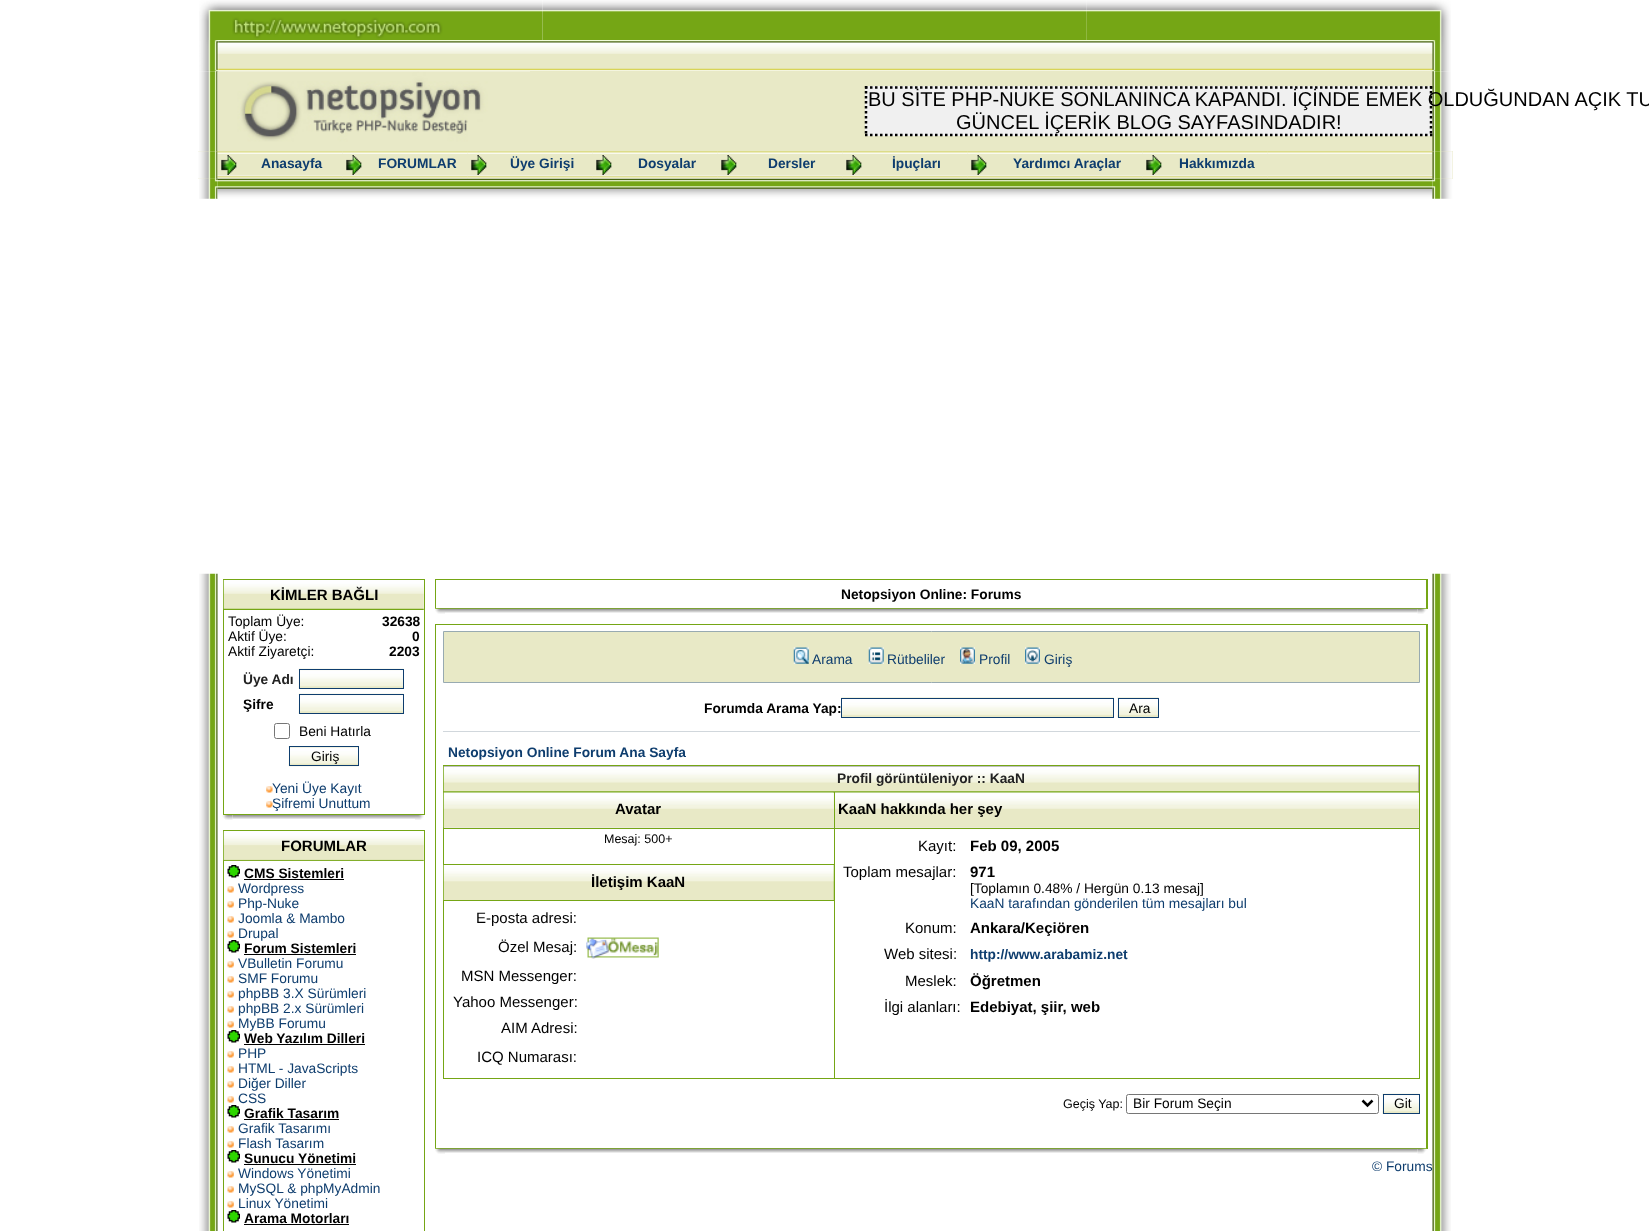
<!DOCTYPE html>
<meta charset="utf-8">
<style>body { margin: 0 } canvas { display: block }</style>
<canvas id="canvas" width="1649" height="1231"></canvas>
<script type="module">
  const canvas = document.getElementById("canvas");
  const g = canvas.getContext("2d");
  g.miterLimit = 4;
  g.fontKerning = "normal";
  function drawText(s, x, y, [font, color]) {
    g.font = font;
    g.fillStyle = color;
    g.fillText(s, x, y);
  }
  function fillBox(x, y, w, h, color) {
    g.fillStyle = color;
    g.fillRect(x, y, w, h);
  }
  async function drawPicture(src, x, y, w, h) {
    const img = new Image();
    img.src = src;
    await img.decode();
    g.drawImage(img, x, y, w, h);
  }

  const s1 = ["20px Liberation Sans", "#000000"];
  const s2 = ["bold 13.75px Liberation Sans", "#0E3D6E"];
  const s3 = ["bold 15px Liberation Sans", "#000000"];
  const s4 = ["13.75px Liberation Sans", "#000000"];
  const s5 = ["bold 13.75px Liberation Sans", "#000000"];
  const s6 = ["bold 13.75px Liberation Sans", "#222222"];
  const s7 = ["13.75px Liberation Sans", "#0E3D6E"];
  const s8 = ["12.5px Liberation Sans", "#000000"];
  const s9 = ["15px Liberation Sans", "#000000"];

  fillBox(0, 0, 1649, 1231, "#FFFFFF");
  await drawPicture("pic1.png", 199, 0, 344, 40);
  await drawPicture("pic2.png", 542, 0, 545, 40);
  await drawPicture("pic3.png", 1086, 0, 365, 40);
  await drawPicture("pic4.png", 199, 40, 20, 32);
  await drawPicture("pic5.png", 218, 40, 1212, 31);
  await drawPicture("pic6.png", 1430, 40, 21, 32);
  await drawPicture("pic7.png", 199, 71, 19, 80);
  fillBox(198, 151, 1255, 28, "#E8E9C6");
  await drawPicture("pic10.png", 198, 151, 20, 28);
  await drawPicture("pic11.png", 217, 151, 126, 28);
  await drawPicture("pic13.png", 342, 151, 126, 28);
  await drawPicture("pic13.png", 467, 151, 126, 28);
  await drawPicture("pic8.png", 217, 71, 313, 81);
  fillBox(530, 71, 903, 80, "#E8E9C6");
  fillBox(865, 86, 568, 50, "#F0F0F0");
  g.beginPath();
  g.moveTo(865, 87.5);
  g.lineTo(1432.5, 87.5);
  g.strokeStyle = "#000000";
  g.lineWidth = 2.5;
  g.setLineDash([2.5, 2.5]);
  g.stroke();
  g.beginPath();
  g.moveTo(1431, 86);
  g.lineTo(1431, 136);
  g.stroke();
  g.beginPath();
  g.moveTo(865, 135);
  g.lineTo(1432.5, 135);
  g.stroke();
  await drawPicture("pic9.png", 1432, 71, 19, 80);
  g.beginPath();
  g.moveTo(866, 86);
  g.lineTo(866, 136);
  g.stroke();
  drawText("BU SİTE PHP-NUKE SONLANINCA KAPANDI. İÇİNDE EMEK OLDUĞUNDAN AÇIK TU", 868, 106, s1);
  drawText("GÜNCEL İÇERİK BLOG SAYFASINDADIR!", 956, 129, s1);
  await drawPicture("pic12.png", 221, 155, 16, 20);
  drawText("Anasayfa", 261, 168, s2);
  await drawPicture("pic14.png", 346, 155, 16, 20);
  drawText("FORUMLAR", 378, 168, s2);
  await drawPicture("pic12.png", 471, 155, 16, 20);
  drawText("Üye Girişi", 510, 168, s2);
  await drawPicture("pic13.png", 592, 151, 126, 28);
  await drawPicture("pic12.png", 596, 155, 16, 20);
  drawText("Dosyalar", 638, 168, s2);
  await drawPicture("pic13.png", 717, 151, 126, 28);
  await drawPicture("pic12.png", 721, 155, 16, 20);
  drawText("Dersler", 768, 168, s2);
  await drawPicture("pic13.png", 842, 151, 126, 28);
  await drawPicture("pic12.png", 846, 155, 16, 20);
  drawText("İpuçları", 892, 168, s2);
  await drawPicture("pic15.png", 967, 151, 176, 28);
  await drawPicture("pic14.png", 971, 155, 16, 20);
  drawText("Yardımcı Araçlar", 1013, 168, s2);
  await drawPicture("pic13.png", 1142, 151, 126, 28);
  await drawPicture("pic14.png", 1146, 155, 16, 20);
  drawText("Hakkımızda", 1179, 168, s2);
  await drawPicture("pic16.png", 1267, 151, 166, 28);
  await drawPicture("pic17.png", 1432, 151, 21, 28);
  await drawPicture("pic18.png", 199, 178, 19, 21);
  await drawPicture("pic19.png", 217, 178, 1216, 21);
  await drawPicture("pic20.png", 1432, 178, 21, 21);
  await drawPicture("pic21.png", 199, 573, 19, 658);
  fillBox(223, 579, 202, 236, "#75A615");
  fillBox(224, 580, 200, 234, "#FFFFFF");
  await drawPicture("pic22.png", 223, 580, 201, 30);
  drawText("KİMLER BAĞLI", 270, 600, s3);
  drawText("Toplam Üye:", 228, 626, s4);
  drawText("32638", 382, 626, s5);
  drawText("Aktif Üye:", 228, 641, s4);
  drawText("0", 412, 641, s5);
  drawText("Aktif Ziyaretçi:", 228, 656, s4);
  drawText("2203", 389, 656, s5);
  drawText("Üye Adı", 243, 684, s6);
  await drawPicture("pic23.png", 298, 668, 106, 21);
  g.strokeStyle = "#0E3D6E";
  g.lineWidth = 1;
  g.setLineDash([]);
  g.strokeRect(299.5, 669.5, 104, 19);
  drawText("Şifre", 243, 709, s5);
  await drawPicture("pic23.png", 298, 693, 106, 21);
  g.strokeRect(299.5, 694.5, 104, 19);
  g.beginPath();
  g.roundRect(274.5, 723.5, 15, 15, 2);
  g.strokeStyle = "#767676";
  g.stroke();
  drawText("Beni Hatırla", 299, 736, s4);
  await drawPicture("pic24.png", 288, 746, 71, 21);
  g.strokeStyle = "#0E3D6E";
  g.strokeRect(289.5, 746.5, 69, 19);
  drawText("Giriş", 311, 761, s4);
  await drawPicture("pic25.png", 266, 786, 7, 7);
  drawText("Yeni Üye Kayıt", 272, 793, s7);
  await drawPicture("pic25.png", 266, 801, 7, 7);
  drawText("Şifremi Unuttum", 272, 808, s7);
  await drawPicture("pic26.png", 222, 815, 11, 5);
  await drawPicture("pic27.png", 232, 815, 183, 4);
  await drawPicture("pic28.png", 415, 815, 9, 5);
  fillBox(223, 830, 202, 401, "#75A615");
  fillBox(224, 831, 200, 30, "#FFFFFF");
  await drawPicture("pic29.png", 223, 831, 201, 31);
  drawText("FORUMLAR", 281, 851, s3);
  fillBox(224, 861, 200, 370, "#FFFFFF");
  await drawPicture("pic30.png", 227, 865, 13, 13);
  drawText("CMS Sistemleri", 244, 878, s5);
  fillBox(244, 879, 100, 1, "#000000");
  await drawPicture("pic31.png", 227, 886, 7, 7);
  drawText("Wordpress", 238, 893, s7);
  await drawPicture("pic31.png", 227, 901, 7, 7);
  drawText("Php-Nuke", 238, 908, s7);
  await drawPicture("pic31.png", 227, 916, 7, 7);
  drawText("Joomla & Mambo", 238, 923, s7);
  await drawPicture("pic31.png", 227, 931, 7, 7);
  drawText("Drupal", 238, 938, s7);
  await drawPicture("pic30.png", 227, 940, 13, 13);
  drawText("Forum Sistemleri", 244, 953, s5);
  fillBox(244, 954, 112, 1, "#000000");
  await drawPicture("pic31.png", 227, 961, 7, 7);
  drawText("VBulletin Forumu", 238, 968, s7);
  await drawPicture("pic31.png", 227, 976, 7, 7);
  drawText("SMF Forumu", 238, 983, s7);
  await drawPicture("pic31.png", 227, 991, 7, 7);
  drawText("phpBB 3.X Sürümleri", 238, 998, s7);
  await drawPicture("pic31.png", 227, 1006, 7, 7);
  drawText("phpBB 2.x Sürümleri", 238, 1013, s7);
  await drawPicture("pic31.png", 227, 1021, 7, 7);
  drawText("MyBB Forumu", 238, 1028, s7);
  await drawPicture("pic30.png", 227, 1030, 13, 13);
  drawText("Web Yazılım Dilleri", 244, 1043, s5);
  fillBox(244, 1044, 121, 1, "#000000");
  await drawPicture("pic31.png", 227, 1051, 7, 7);
  drawText("PHP", 238, 1058, s7);
  await drawPicture("pic31.png", 227, 1066, 7, 7);
  drawText("HTML - JavaScripts", 238, 1073, s7);
  await drawPicture("pic31.png", 227, 1081, 7, 7);
  drawText("Diğer Diller", 238, 1088, s7);
  await drawPicture("pic31.png", 227, 1096, 7, 7);
  drawText("CSS", 238, 1103, s7);
  await drawPicture("pic30.png", 227, 1105, 13, 13);
  drawText("Grafik Tasarım", 244, 1118, s5);
  fillBox(244, 1119, 95, 1, "#000000");
  await drawPicture("pic31.png", 227, 1126, 7, 7);
  drawText("Grafik Tasarımı", 238, 1133, s7);
  await drawPicture("pic31.png", 227, 1141, 7, 7);
  drawText("Flash Tasarım", 238, 1148, s7);
  await drawPicture("pic30.png", 227, 1150, 13, 13);
  drawText("Sunucu Yönetimi", 244, 1163, s5);
  fillBox(244, 1164, 112, 1, "#000000");
  await drawPicture("pic31.png", 227, 1171, 7, 7);
  drawText("Windows Yönetimi", 238, 1178, s7);
  await drawPicture("pic31.png", 227, 1186, 7, 7);
  drawText("MySQL & phpMyAdmin", 238, 1193, s7);
  await drawPicture("pic31.png", 227, 1201, 7, 7);
  drawText("Linux Yönetimi", 238, 1208, s7);
  await drawPicture("pic30.png", 227, 1210, 13, 13);
  drawText("Arama Motorları", 244, 1223, s5);
  fillBox(244, 1224, 105, 1, "#000000");
  fillBox(435, 579, 993, 30, "#75A615");
  fillBox(436, 580, 990, 28, "#FFFFFF");
  drawText("Netopsiyon Online: Forums", 841, 599, s5);
  await drawPicture("pic32.png", 435, 608, 10, 6);
  await drawPicture("pic33.png", 445, 608, 973, 5);
  await drawPicture("pic34.png", 1417, 608, 10, 6);
  fillBox(435, 624, 993, 525, "#75A615");
  fillBox(436, 625, 990, 523, "#FFFFFF");
  g.fillStyle = "#E8E9C6";
  g.beginPath();
  g.rect(443.5, 631.5, 976, 51);
  g.fill();
  g.strokeStyle = "#98AAB1";
  g.stroke();
  await drawPicture("pic35.png", 793, 647, 16, 17);
  drawText("Arama", 812, 664, s7);
  await drawPicture("pic36.png", 868, 647, 16, 17);
  drawText("Rütbeliler", 887, 664, s7);
  await drawPicture("pic37.png", 960, 647, 15, 17);
  drawText("Profil", 979, 664, s7);
  await drawPicture("pic38.png", 1025, 647, 15, 17);
  drawText("Giriş", 1044, 664, s7);
  drawText("Forumda Arama Yap:", 704, 713, s5);
  await drawPicture("pic39.png", 841, 697, 273, 20);
  g.strokeStyle = "#0E3D6E";
  g.strokeRect(841.5, 698.5, 272, 19);
  await drawPicture("pic40.png", 1117, 697, 42, 21);
  g.strokeRect(1118.5, 698.5, 40, 19);
  drawText("Ara", 1129, 713, s4);
  fillBox(443, 731, 977, 1, "#D1D7DC");
  drawText("Netopsiyon Online Forum Ana Sayfa", 448, 757, s2);
  fillBox(443, 765, 977, 314, "#75A615");
  fillBox(444, 766, 975, 25, "#000000");
  await drawPicture("pic41.png", 443, 766, 976, 26);
  drawText("Profil görüntüleniyor :: KaaN", 837, 783, s6);
  fillBox(444, 793, 390, 35, "#ECECEC");
  await drawPicture("pic42.png", 443, 792, 391, 36);
  drawText("Avatar", 615, 814, s3);
  fillBox(835, 793, 584, 35, "#ECECEC");
  await drawPicture("pic43.png", 835, 792, 584, 36);
  drawText("KaaN hakkında her şey", 838, 814, s3);
  fillBox(444, 829, 390, 35, "#FFFFFF");
  drawText("Mesaj: 500+", 604, 843, s8);
  fillBox(835, 829, 584, 249, "#FFFFFF");
  drawText("Kayıt:", 918, 851, s9);
  drawText("Feb 09, 2005", 970, 851, s3);
  drawText("Toplam mesajlar:", 843, 877, s9);
  drawText("971", 970, 877, s3);
  drawText("[Toplamın 0.48% / Hergün 0.13 mesaj]", 970, 893, s4);
  drawText("KaaN tarafından gönderilen tüm mesajları bul", 970, 908, s7);
  drawText("Konum:", 905, 933, s9);
  drawText("Ankara/Keçiören", 970, 933, s3);
  drawText("Web sitesi:", 884, 959, s9);
  drawText("http://www.arabamiz.net", 970, 959, s2);
  drawText("Meslek:", 905, 986, s9);
  drawText("Öğretmen", 970, 986, s3);
  drawText("İlgi alanları:", 884, 1012, s9);
  drawText("Edebiyat, şiir, web", 970, 1012, s3);
  await drawPicture("pic44.png", 443, 865, 391, 35);
  drawText("İletişim KaaN", 591, 887, s3);
  fillBox(444, 901, 390, 177, "#FFFFFF");
  drawText("E-posta adresi:", 476, 923, s9);
  drawText("Özel Mesaj:", 498, 952, s9);
  await drawPicture("pic45.png", 586, 937, 73, 22);
  drawText("MSN Messenger:", 461, 981, s9);
  drawText("Yahoo Messenger:", 453, 1007, s9);
  drawText("AIM Adresi:", 501, 1033, s9);
  drawText("ICQ Numarası:", 477, 1062, s9);
  drawText("Geçiş Yap:", 1063, 1108, s8);
  g.beginPath();
  g.roundRect(1126.5, 1094.5, 252, 19, 2);
  g.strokeStyle = "#767676";
  g.stroke();
  g.beginPath();
  g.moveTo(1362.5, 1100.5);
  g.lineTo(1367.5, 1105.5);
  g.lineTo(1372.5, 1100.5);
  g.strokeStyle = "#000000";
  g.lineWidth = 2.5;
  g.stroke();
  drawText("Bir Forum Seçin", 1133, 1108, s4);
  await drawPicture("pic46.png", 1382, 1093, 38, 21);
  g.strokeStyle = "#0E3D6E";
  g.lineWidth = 1;
  g.strokeRect(1383.5, 1094.5, 36, 19);
  drawText("Git", 1394, 1108, s4);
  await drawPicture("pic32.png", 435, 1148, 10, 6);
  await drawPicture("pic47.png", 445, 1148, 973, 5);
  await drawPicture("pic34.png", 1417, 1148, 10, 6);
  drawText("© Forums", 1372, 1171, s7);
  await drawPicture("pic48.png", 1432, 573, 19, 658);
</script>
